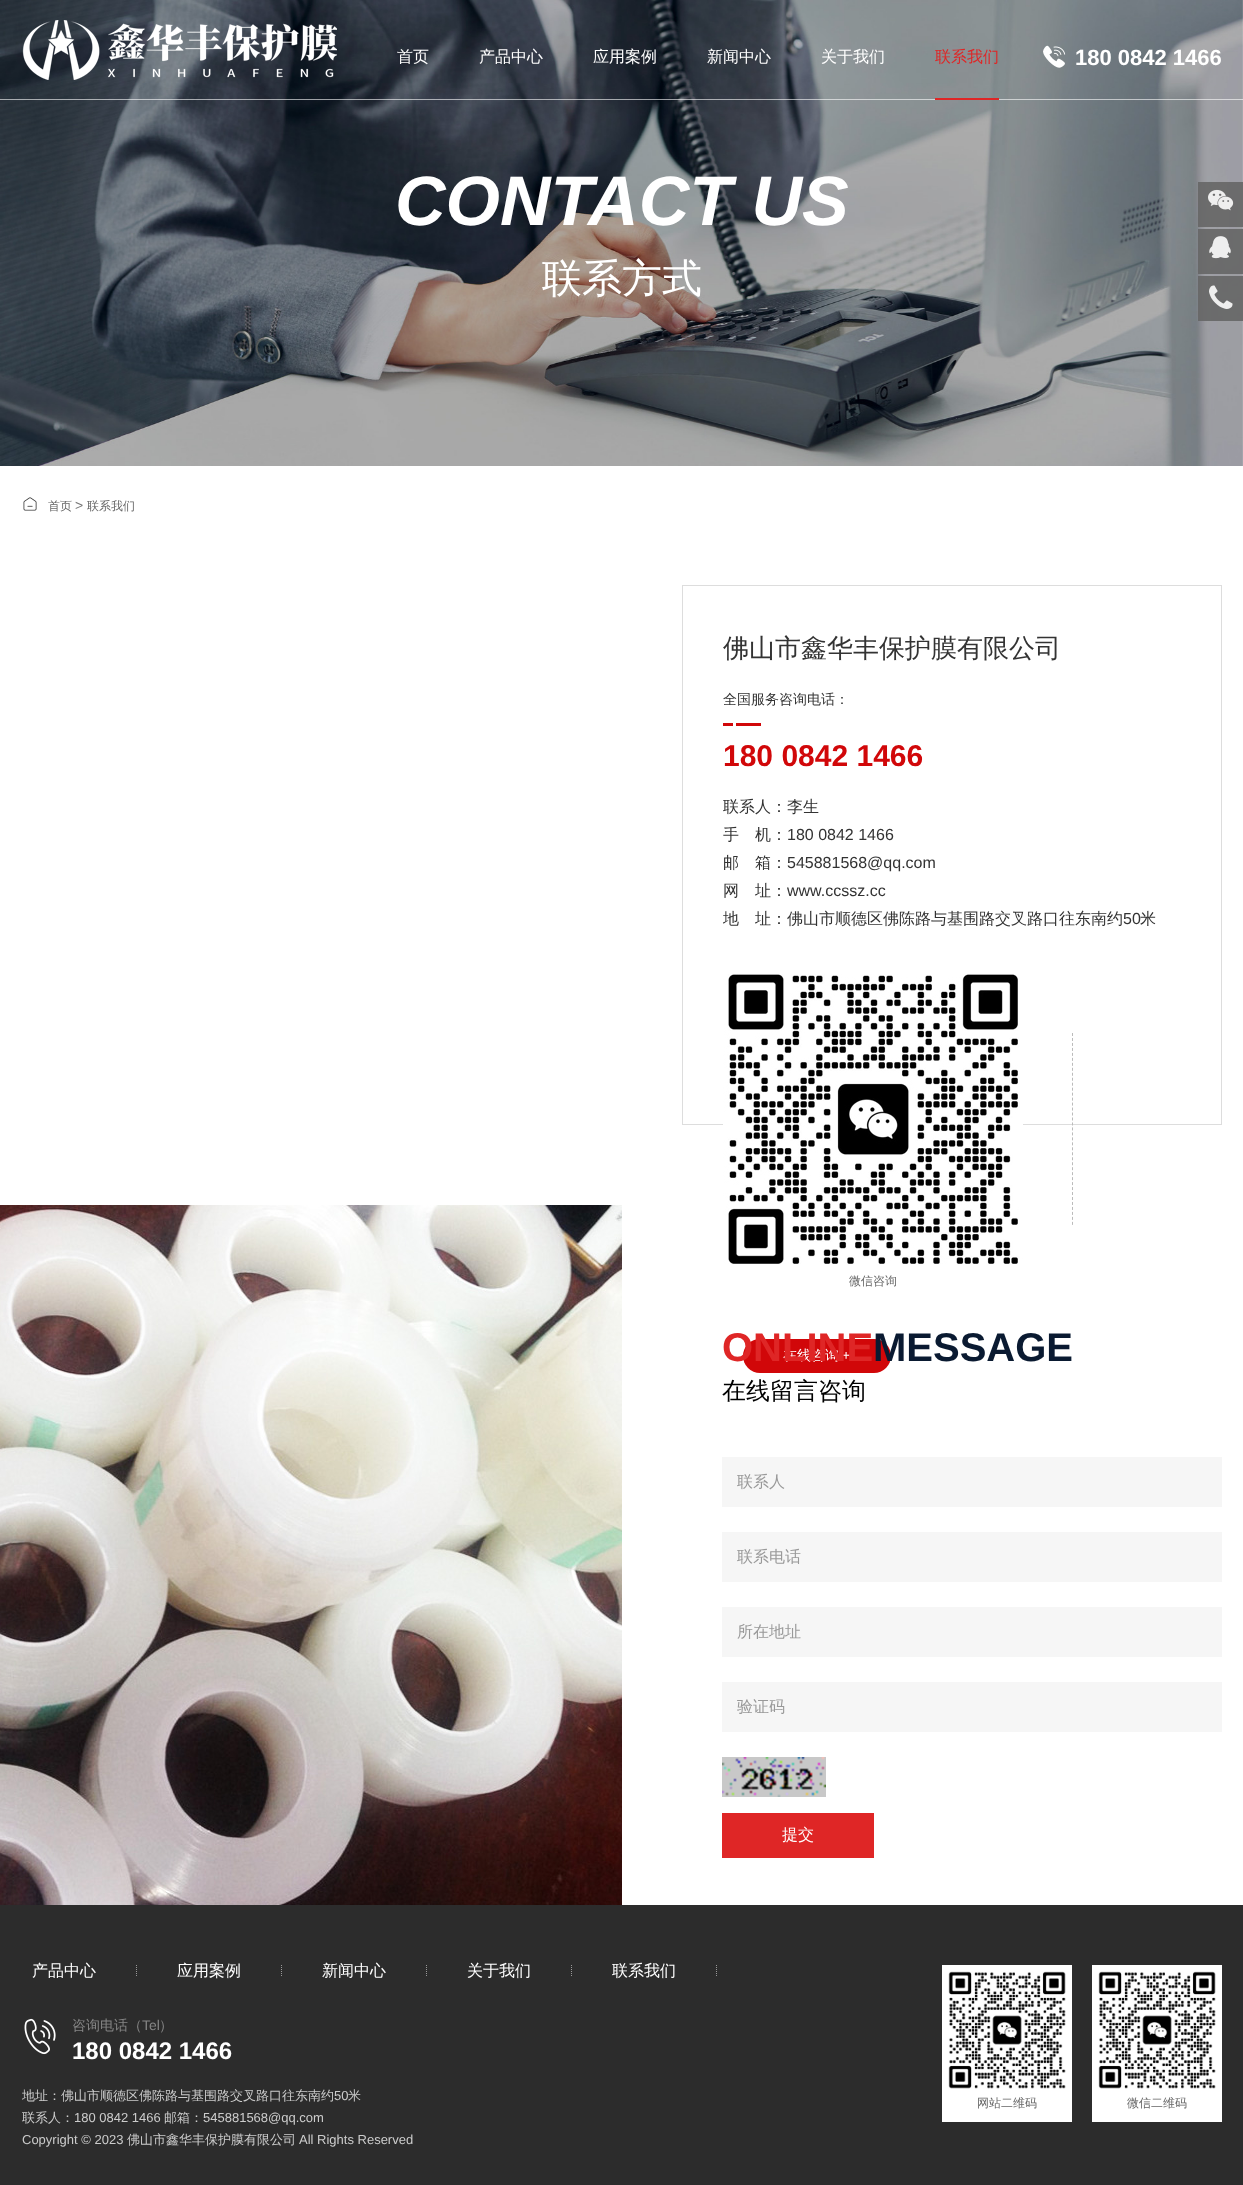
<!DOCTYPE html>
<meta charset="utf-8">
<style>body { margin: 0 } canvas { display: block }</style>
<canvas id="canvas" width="1243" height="2185"></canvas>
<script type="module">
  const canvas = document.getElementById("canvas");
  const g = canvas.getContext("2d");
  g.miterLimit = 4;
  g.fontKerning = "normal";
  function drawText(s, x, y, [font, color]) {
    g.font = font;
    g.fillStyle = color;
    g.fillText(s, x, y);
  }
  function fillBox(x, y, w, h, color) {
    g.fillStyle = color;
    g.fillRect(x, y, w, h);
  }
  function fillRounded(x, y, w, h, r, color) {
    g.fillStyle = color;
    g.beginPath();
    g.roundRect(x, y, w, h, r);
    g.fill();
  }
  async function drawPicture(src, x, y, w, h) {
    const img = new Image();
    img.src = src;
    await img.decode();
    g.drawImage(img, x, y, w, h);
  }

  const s1 = ["500 16px WenQuanYi Zen Hei", "#FFFFFF"];
  const s2 = ["500 16px WenQuanYi Zen Hei", "#DF2626"];
  const s3 = ["bold 22px Liberation Sans", "#FFFFFF"];
  const s4 = ["italic bold 70px Liberation Sans", "#FFFFFF"];
  const s5 = ["500 40px WenQuanYi Zen Hei", "#FFFFFF"];
  const s6 = ["500 12px WenQuanYi Zen Hei", "#666666"];
  const s7 = ["14px Liberation Sans", "#767676"];
  const s8 = ["500 26px WenQuanYi Zen Hei", "#333333"];
  const s9 = ["500 14px WenQuanYi Zen Hei", "#333333"];
  const s10 = ["bold 30px Liberation Sans", "#D10709"];
  const s11 = ["500 16px WenQuanYi Zen Hei", "#333333"];
  const s12 = ["16px Liberation Sans", "#333333"];
  const s13 = ["500 14px WenQuanYi Zen Hei", "#FFFFFF"];
  const s14 = ["14px Liberation Sans", "#FFFFFF"];
  const s15 = ["bold 40px Liberation Sans", "#DF2626"];
  const s16 = ["bold 40px Liberation Sans", "#0A1A31"];
  const s17 = ["500 24px WenQuanYi Zen Hei", "#000000"];
  const s18 = ["500 16px WenQuanYi Zen Hei", "#999999"];
  const s19 = ["500 14px WenQuanYi Zen Hei", "#858585"];
  const s20 = ["14px Liberation Sans", "#858585"];
  const s21 = ["bold 24px Liberation Sans", "#FFFFFF"];
  const s22 = ["500 13px WenQuanYi Zen Hei", "#CCCCCC"];
  const s23 = ["13px Liberation Sans", "#CCCCCC"];

  fillBox(0, 0, 1243, 2185, "#FFFFFF");
  await drawPicture("pic3.png", 0, 0, 1243, 466);
  fillBox(0, 99, 1243, 1, "rgba(255, 255, 255, 0.6)");
  await drawPicture("pic1.png", 22, 20, 315, 60);
  drawText("首页", 397, 62, s1);
  drawText("产品中心", 479, 62, s1);
  drawText("应用案例", 593, 62, s1);
  drawText("新闻中心", 707, 62, s1);
  drawText("关于我们", 821, 62, s1);
  drawText("联系我们", 935, 62, s2);
  fillBox(935, 98, 64, 2, "#DF2626");
  await drawPicture("pic2.png", 1043, 45, 23, 23);
  drawText("180 0842 1466", 1075, 65, s3);
  drawText("CONTACT US", 395, 225, s4);
  drawText("联系方式", 542, 292, s5);
  fillBox(1198, 182, 45, 45, "rgba(102, 102, 102, 0.9)");
  await drawPicture("pic4.png", 1208, 189, 26, 22);
  fillBox(1198, 229, 45, 45, "rgba(102, 102, 102, 0.9)");
  await drawPicture("pic5.png", 1209, 236, 22, 23);
  fillBox(1198, 276, 45, 45, "rgba(102, 102, 102, 0.9)");
  await drawPicture("pic6.png", 1209, 285, 24, 24);
  await drawPicture("pic7.png", 23, 497, 14, 14);
  drawText("首页", 48, 510, s6);
  drawText(">", 75, 510, s7);
  drawText("联系我们", 87, 510, s6);
  g.strokeStyle = "#DDDDDD";
  g.strokeRect(682.5, 585.5, 539, 539);
  drawText("佛山市鑫华丰保护膜有限公司", 723, 657, s8);
  drawText("全国服务咨询电话：", 723, 704, s9);
  fillBox(723, 723, 10, 3, "#D10709");
  fillBox(736, 723, 25, 3, "#D10709");
  drawText("180 0842 1466", 723, 766, s10);
  drawText("联系人：李生", 723, 812, s11);
  drawText("手　机：", 723, 840, s11);
  drawText("180 0842 1466", 787, 840, s12);
  drawText("邮　箱：", 723, 868, s11);
  drawText("545881568@qq.com", 787, 868, s12);
  drawText("网　址：", 723, 896, s11);
  drawText("www.ccssz.cc", 787, 896, s12);
  drawText("地　址：佛山市顺德区佛陈路与基围路交叉路口往东南约", 723, 924, s11);
  drawText("50", 1123, 924, s12);
  drawText("米", 1140, 924, s11);
  await drawPicture("pic8.png", 723, 974, 300, 290);
  g.beginPath();
  g.moveTo(1072.5, 1033);
  g.lineTo(1072.5, 1225);
  g.strokeStyle = "#BBBBBB";
  g.setLineDash([3, 1.97]);
  g.stroke();
  drawText("微信咨询", 849, 1285, s6);
  fillRounded(743, 1339, 148, 34, 17, "#D10709");
  drawText("在线咨询", 783, 1360, s13);
  drawText("+", 842, 1360, s14);
  await drawPicture("pic9.png", 0, 1205, 622, 700);
  drawText("ONLINE", 722, 1361, s15);
  drawText("MESSAGE", 873, 1361, s16);
  drawText("在线留言咨询", 722, 1399, s17);
  fillBox(722, 1457, 500, 50, "#F6F6F6");
  drawText("联系人", 737, 1487, s18);
  fillBox(722, 1532, 500, 50, "#F6F6F6");
  drawText("联系电话", 737, 1562, s18);
  fillBox(722, 1607, 500, 50, "#F6F6F6");
  drawText("所在地址", 737, 1637, s18);
  fillBox(722, 1682, 500, 50, "#F6F6F6");
  g.save();
  g.beginPath();
  g.rect(737, 1697, 470, 21);
  g.clip();
  drawText("验证码", 737, 1712, s18);
  g.restore();
  await drawPicture("pic10.png", 722, 1757, 104, 40);
  fillBox(722, 1813, 152, 45, "#DF2626");
  drawText("提交", 782, 1840, s1);
  fillBox(0, 1905, 1243, 280, "#2C2C2C");
  g.beginPath();
  g.moveTo(136.5, 1965);
  g.lineTo(136.5, 1977);
  g.strokeStyle = "#999999";
  g.setLineDash([1, 1]);
  g.stroke();
  drawText("产品中心", 32, 1976, s1);
  g.beginPath();
  g.moveTo(281.5, 1965);
  g.lineTo(281.5, 1977);
  g.stroke();
  drawText("应用案例", 177, 1976, s1);
  g.beginPath();
  g.moveTo(426.5, 1965);
  g.lineTo(426.5, 1977);
  g.stroke();
  drawText("新闻中心", 322, 1976, s1);
  g.beginPath();
  g.moveTo(571.5, 1965);
  g.lineTo(571.5, 1977);
  g.stroke();
  drawText("关于我们", 467, 1976, s1);
  g.beginPath();
  g.moveTo(716.5, 1965);
  g.lineTo(716.5, 1977);
  g.stroke();
  drawText("联系我们", 612, 1976, s1);
  await drawPicture("pic11.png", 24, 2018, 32, 37);
  drawText("咨询电话（", 72, 2030, s19);
  drawText("Tel", 142, 2030, s20);
  drawText("）", 159, 2030, s19);
  drawText("180 0842 1466", 72, 2059, s21);
  drawText("地址：佛山市顺德区佛陈路与基围路交叉路口往东南约", 22, 2100, s22);
  drawText("50", 334, 2100, s23);
  drawText("米", 348, 2100, s22);
  drawText("联系人：", 22, 2122, s22);
  drawText("180 0842 1466", 74, 2122, s23);
  drawText("邮箱：", 164, 2122, s22);
  drawText("545881568@qq.com", 203, 2122, s23);
  drawText("Copyright © 2023", 22, 2144, s23);
  drawText("佛山市鑫华丰保护膜有限公司", 127, 2144, s22);
  drawText("All Rights Reserved", 299, 2144, s23);
  fillBox(942, 1965, 130, 157, "#FFFFFF");
  await drawPicture("pic12.png", 948, 1971, 118, 118);
  drawText("网站二维码", 977, 2107, s6);
  fillBox(1092, 1965, 130, 157, "#FFFFFF");
  await drawPicture("pic12.png", 1098, 1971, 118, 118);
  drawText("微信二维码", 1127, 2107, s6);
</script>
